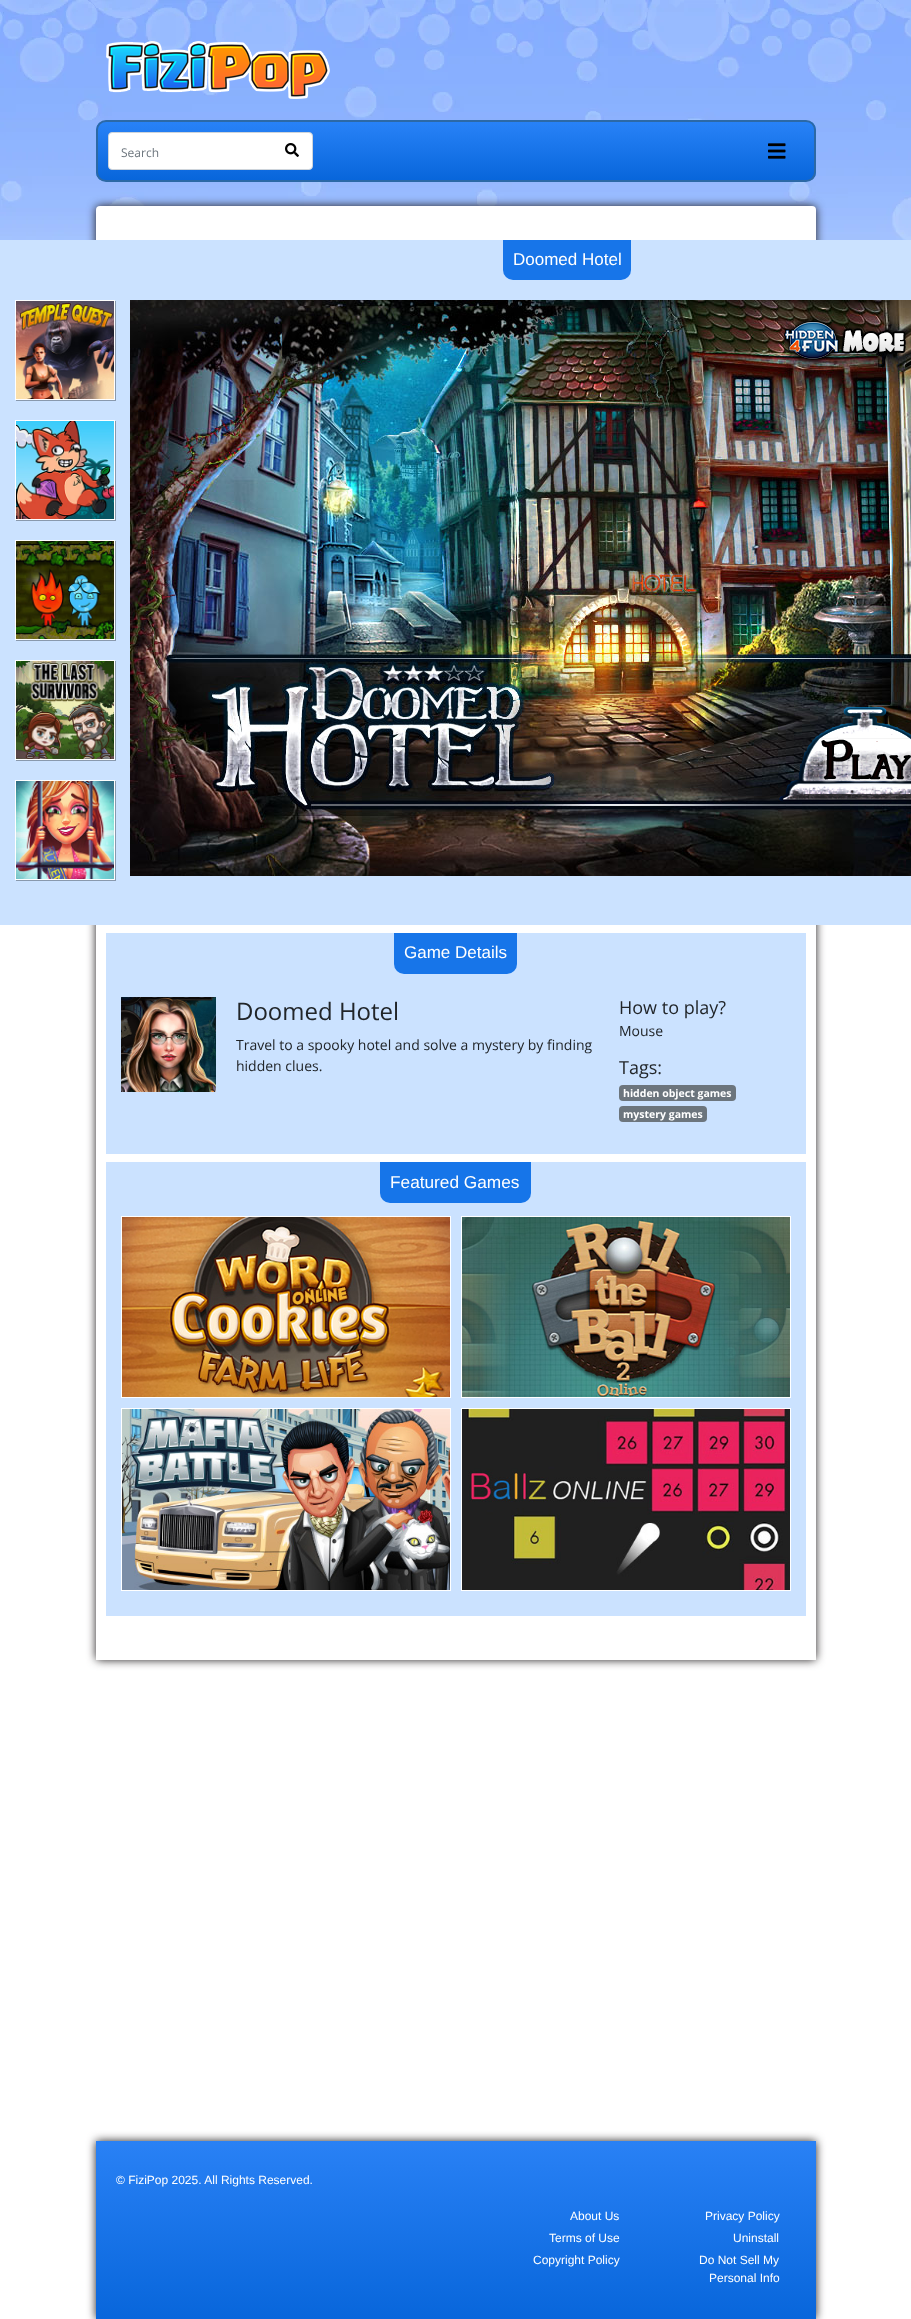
<!DOCTYPE html>
<meta charset="utf-8">
<style>body { margin: 0 } canvas { display: block }</style>
<canvas id="canvas" width="911" height="2319"></canvas>
<script type="module">
  const canvas = document.getElementById("canvas");
  const g = canvas.getContext("2d");
  g.miterLimit = 4;
  g.fontKerning = "normal";
  function drawText(s, x, y, [font, color]) {
    g.font = font;
    g.fillStyle = color;
    g.fillText(s, x, y);
  }
  function fillBox(x, y, w, h, color) {
    g.fillStyle = color;
    g.fillRect(x, y, w, h);
  }
  function fillRounded(x, y, w, h, r, color) {
    g.fillStyle = color;
    g.beginPath();
    g.roundRect(x, y, w, h, r);
    g.fill();
  }
  async function drawPicture(src, x, y, w, h) {
    const img = new Image();
    img.src = src;
    await img.decode();
    g.drawImage(img, x, y, w, h);
  }
  let gradient;

  const s1 = ["12px Open Sans", "#6C757D"];
  const s2 = ["17px Liberation Sans", "#FFFFFF"];
  const s3 = ["24px Open Sans", "#212529"];
  const s4 = ["14px Open Sans", "#212529"];
  const s5 = ["18px Open Sans", "#212529"];
  const s6 = ["bold 10.5px Open Sans", "#FFFFFF"];
  const s7 = ["17.25px Liberation Sans", "#FFFFFF"];
  const s8 = ["12px Liberation Sans", "#FFFFFF"];

  fillBox(0, 0, 911, 2319, "#FFFFFF");
  await drawPicture("pic1.png", 0, 0, 911, 240);
  await drawPicture("pic2.png", 106, 41, 224, 58);
  g.save();
  g.beginPath();
  g.roundRect(96, 120, 720, 62, 10);
  g.clip();
  gradient = g.createLinearGradient(456, 122, 456, 180);
  gradient.addColorStop(0, "#2882F7");
  gradient.addColorStop(1, "#0866DB");
  g.fillStyle = gradient;
  g.fillRect(96, 122, 720, 58);
  g.restore();
  g.beginPath();
  g.roundRect(97, 121, 718, 60, 9);
  g.strokeStyle = "#2C69A6";
  g.lineWidth = 2;
  g.stroke();
  g.beginPath();
  g.roundRect(108.5, 132.5, 204, 37, 3.5);
  g.fill();
  g.strokeStyle = "#CED4DA";
  g.lineWidth = 1;
  g.stroke();
  drawText("Search", 121, 157, s1);
  await drawPicture("pic3.png", 285, 143, 14, 14);
  await drawPicture("pic4.png", 768, 143, 18, 16);
  g.fillStyle = "#231F20";
  g.filter = "blur(5px)";
  g.beginPath();
  g.roundRect(96, 206, 720, 1454, 4);
  g.fill();
  g.filter = "none";
  g.fillStyle = "#FFFFFF";
  g.beginPath();
  g.roundRect(96, 206, 720, 1454, [4, 4, 0, 0]);
  g.fill();
  fillBox(0, 240, 911, 685, "#CBE2FF");
  g.fillStyle = "rgba(0, 0, 0, 0.32)";
  g.filter = "blur(0.5px)";
  g.beginPath();
  g.rect(16, 301, 100, 100);
  g.fill();
  g.filter = "none";
  g.strokeStyle = "#FFFFFF";
  g.strokeRect(15.5, 300.5, 99, 99);
  await drawPicture("pic5.png", 16, 301, 98, 98);
  g.filter = "blur(0.5px)";
  g.beginPath();
  g.rect(16, 421, 100, 100);
  g.fill();
  g.filter = "none";
  g.strokeRect(15.5, 420.5, 99, 99);
  await drawPicture("pic6.png", 16, 421, 98, 98);
  g.filter = "blur(0.5px)";
  g.beginPath();
  g.rect(16, 541, 100, 100);
  g.fill();
  g.filter = "none";
  g.strokeRect(15.5, 540.5, 99, 99);
  await drawPicture("pic7.png", 16, 541, 98, 98);
  g.filter = "blur(0.5px)";
  g.beginPath();
  g.rect(16, 661, 100, 100);
  g.fill();
  g.filter = "none";
  g.strokeRect(15.5, 660.5, 99, 99);
  await drawPicture("pic8.png", 16, 661, 98, 98);
  g.filter = "blur(0.5px)";
  g.beginPath();
  g.rect(16, 781, 100, 100);
  g.fill();
  g.filter = "none";
  g.strokeRect(15.5, 780.5, 99, 99);
  await drawPicture("pic9.png", 16, 781, 98, 98);
  await drawPicture("pic10.png", 130, 300, 781, 576);
  g.fillStyle = "#1775E9";
  g.beginPath();
  g.roundRect(503, 240, 128, 40, [0, 0, 10, 10]);
  g.fill();
  drawText("Doomed Hotel", 513, 265, s2);
  fillBox(106, 933, 700, 221, "#CBE2FF");
  g.fillStyle = "#1775E9";
  g.beginPath();
  g.roundRect(394, 933, 123, 41, [0, 0, 10, 10]);
  g.fill();
  drawText("Game Details", 404, 958, s2);
  await drawPicture("pic11.png", 121, 997, 95, 95);
  drawText("Doomed Hotel", 236, 1020, s3);
  drawText("Travel to a spooky hotel and solve a mystery by finding", 236, 1050, s4);
  drawText("hidden clues.", 236, 1071, s4);
  drawText("How to play?", 619, 1014, s5);
  drawText("Mouse", 619, 1036, s4);
  drawText("Tags:", 619, 1074, s5);
  fillRounded(619, 1085, 117, 16, 4, "#6C757D");
  drawText("hidden object games", 623, 1097, s6);
  fillRounded(619, 1106, 88, 16, 4, "#6C757D");
  drawText("mystery games", 623, 1118, s6);
  fillBox(106, 1162, 700, 454, "#CBE2FF");
  g.fillStyle = "#1675E9";
  g.beginPath();
  g.roundRect(380, 1162, 151, 41, [0, 0, 10, 10]);
  g.fill();
  drawText("Featured Games", 390, 1188, s7);
  g.strokeRect(121.5, 1216.5, 329, 181);
  await drawPicture("pic12.png", 122, 1217, 328, 180);
  g.strokeRect(461.5, 1216.5, 329, 181);
  await drawPicture("pic13.png", 462, 1217, 328, 180);
  g.strokeRect(121.5, 1408.5, 329, 182);
  await drawPicture("pic14.png", 122, 1409, 328, 181);
  g.strokeRect(461.5, 1408.5, 329, 182);
  await drawPicture("pic15.png", 462, 1409, 328, 181);
  g.fillStyle = "#231F20";
  g.filter = "blur(5px)";
  g.beginPath();
  g.rect(96, 2141, 720, 178);
  g.fill();
  g.filter = "none";
  gradient = g.createLinearGradient(456, 2141, 456, 2319);
  gradient.addColorStop(0, "#2981F5");
  gradient.addColorStop(1, "#0866DB");
  g.fillStyle = gradient;
  g.fillRect(96, 2141, 720, 178);
  drawText("© FiziPop 2025. All Rights Reserved.", 116, 2184, s8);
  drawText("About Us", 570, 2220, s8);
  drawText("Privacy Policy", 705, 2220, s8);
  drawText("Terms of Use", 549, 2242, s8);
  drawText("Uninstall", 733, 2242, s8);
  drawText("Copyright Policy", 533, 2264, s8);
  drawText("Do Not Sell My", 699, 2264, s8);
  drawText("Personal Info", 709, 2282, s8);
</script>
